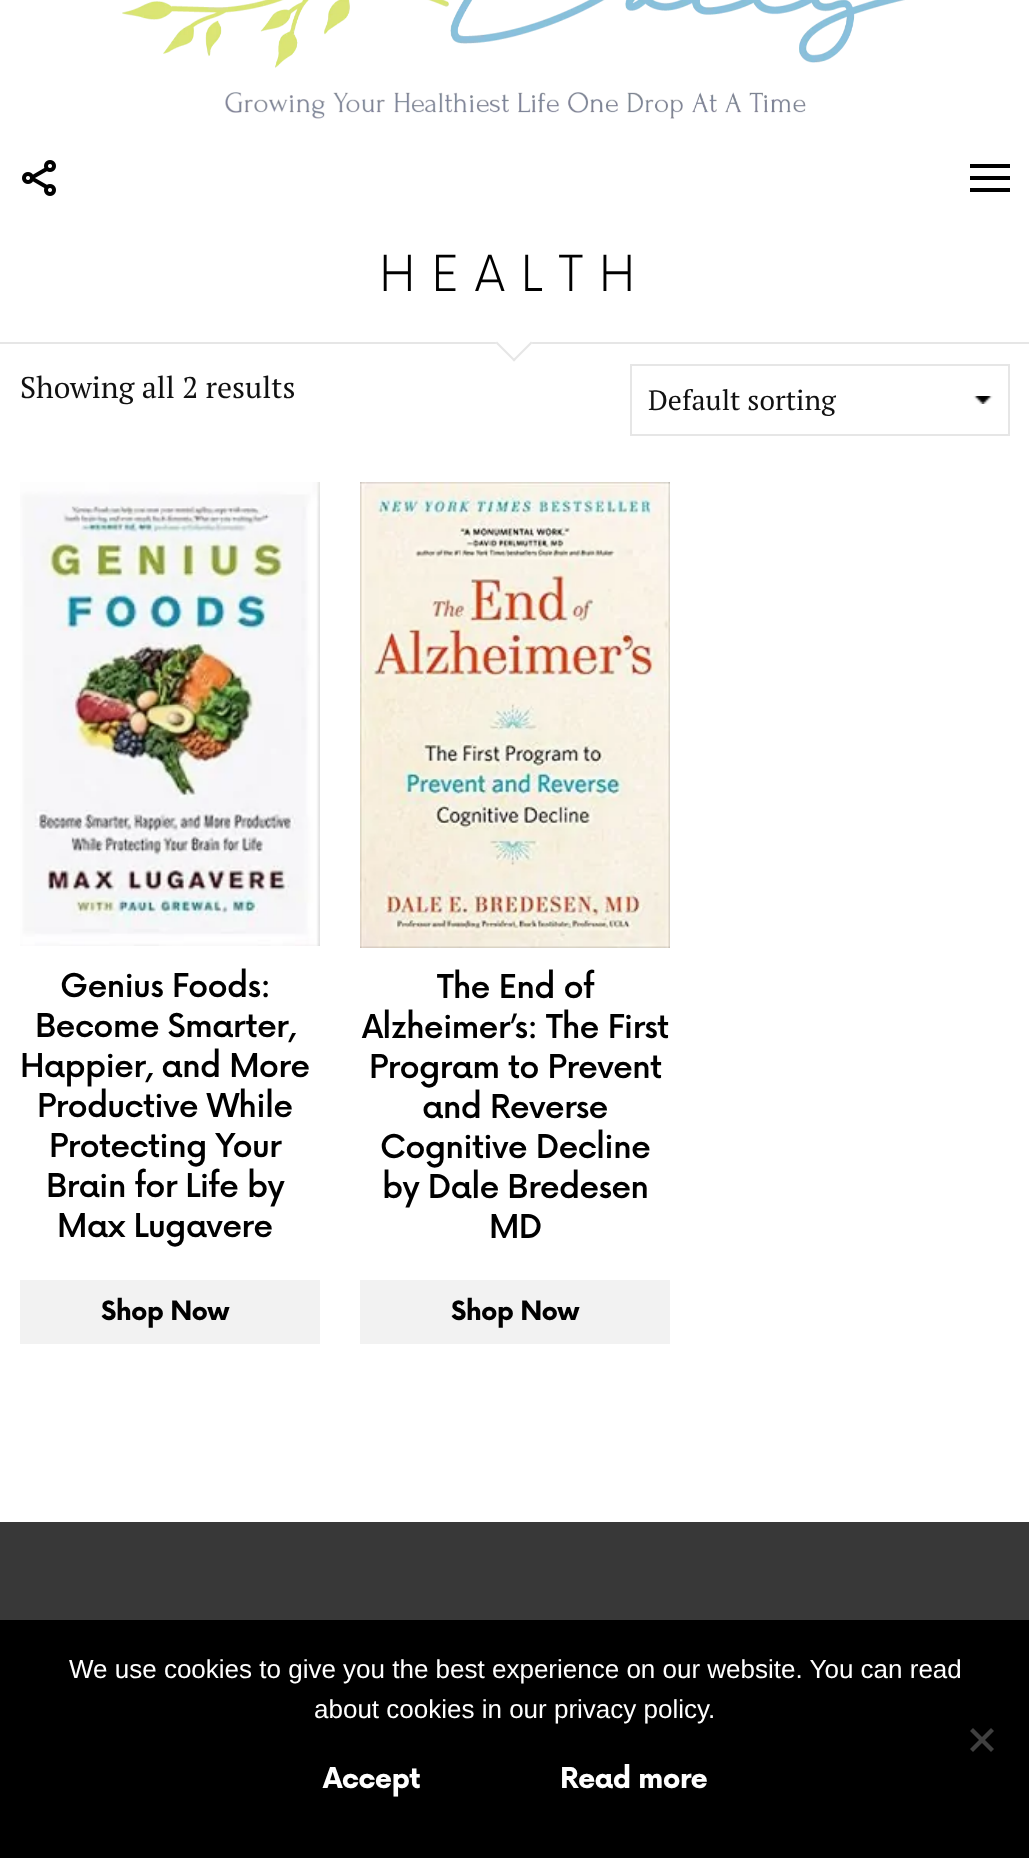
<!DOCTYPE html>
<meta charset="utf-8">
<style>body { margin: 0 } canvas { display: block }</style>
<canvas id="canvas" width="1029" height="1858"></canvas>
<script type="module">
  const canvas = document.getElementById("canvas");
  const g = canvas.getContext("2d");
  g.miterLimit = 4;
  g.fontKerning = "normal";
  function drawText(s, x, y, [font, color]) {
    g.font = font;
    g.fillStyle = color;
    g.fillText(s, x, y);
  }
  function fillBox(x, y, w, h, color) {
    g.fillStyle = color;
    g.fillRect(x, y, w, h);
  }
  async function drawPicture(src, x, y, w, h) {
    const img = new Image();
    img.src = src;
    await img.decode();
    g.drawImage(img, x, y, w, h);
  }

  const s1 = ["300 48.5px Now", "#000000"];
  const s2 = ["30px PT Serif", "#111111"];
  const s3 = ["28px PT Serif", "#111111"];
  const s4 = ["500 32px Now", "#000000"];
  const s5 = ["bold 26px Now", "#000000"];
  const s6 = ["26px Liberation Sans", "#FFFFFF"];
  const s7 = ["bold 28px Now", "#FFFFFF"];

  fillBox(0, 0, 1029, 1858, "#FFFFFF");
  await drawPicture("pic1.png", 122, 0, 783, 119);
  await drawPicture("pic2.png", 22, 160, 34, 36);
  g.fillStyle = "#000000";
  g.beginPath();
  g.moveTo(970, 164);
  g.lineTo(1010, 164);
  g.lineTo(1010, 168);
  g.lineTo(970, 168);
  g.closePath();
  g.moveTo(970, 176);
  g.lineTo(1010, 176);
  g.lineTo(1010, 180);
  g.lineTo(970, 180);
  g.closePath();
  g.moveTo(970, 188);
  g.lineTo(1010, 188);
  g.lineTo(1010, 192);
  g.lineTo(970, 192);
  g.closePath();
  g.fill();
  g.letterSpacing = "15.5px";
  drawText("HEALTH", 379, 291, s1);
  fillBox(0, 342, 1029, 2, "#E6E6E6");
  g.fillStyle = "#FFFFFF";
  g.beginPath();
  g.moveTo(495.5, 343);
  g.lineTo(514, 325);
  g.lineTo(532.5, 343);
  g.lineTo(514, 361.5);
  g.closePath();
  g.fill();
  g.fillStyle = "#E6E6E6";
  g.beginPath();
  g.moveTo(512.5, 360);
  g.lineTo(531, 341.5);
  g.lineTo(532.5, 343);
  g.lineTo(514, 361.5);
  g.closePath();
  g.fill();
  g.beginPath();
  g.moveTo(495.5, 343);
  g.lineTo(497, 341.5);
  g.lineTo(515.5, 360);
  g.lineTo(514, 361.5);
  g.closePath();
  g.fill();
  g.letterSpacing = "0px";
  drawText("Showing all 2 results", 20, 398, s2);
  await drawPicture("pic3.png", 973, 396, 20, 8);
  g.strokeStyle = "#E6E6E6";
  g.lineWidth = 2;
  g.strokeRect(631, 365, 378, 70);
  drawText("Default sorting", 648, 410, s3);
  await drawPicture("pic4.png", 20, 482, 300, 464);
  g.letterSpacing = "-0.8px";
  drawText("Genius Foods:", 60, 997, s4);
  drawText("Become Smarter,", 35, 1037, s4);
  drawText("Happier, and More", 20, 1077, s4);
  drawText("Productive While", 37, 1117, s4);
  drawText("Protecting Your", 49, 1157, s4);
  drawText("Brain for Life by", 46, 1197, s4);
  drawText("Max Lugavere", 57, 1237, s4);
  fillBox(20, 1280, 300, 64, "#F2F2F2");
  g.letterSpacing = "-0.75px";
  drawText("Shop Now", 101, 1320, s5);
  await drawPicture("pic5.png", 360, 482, 310, 466);
  g.letterSpacing = "-0.8px";
  drawText("The End of", 437, 998, s4);
  drawText("Alzheimer’s: The First", 362, 1038, s4);
  drawText("Program to Prevent", 369, 1078, s4);
  drawText("and Reverse", 422, 1118, s4);
  drawText("Cognitive Decline", 380, 1158, s4);
  drawText("by Dale Bredesen", 382, 1198, s4);
  drawText("MD", 489, 1238, s4);
  fillBox(360, 1280, 310, 64, "#F2F2F2");
  g.letterSpacing = "-0.75px";
  drawText("Shop Now", 451, 1320, s5);
  fillBox(0, 1522, 1029, 98, "#383838");
  fillBox(0, 1620, 1029, 238, "#000000");
  g.letterSpacing = "0px";
  drawText("We use cookies to give you the best experience on our website. You can read", 69, 1678, s6);
  drawText("about cookies in our privacy policy.", 314, 1718, s6);
  g.fillStyle = "#404040";
  g.beginPath();
  g.moveTo(991, 1728);
  g.lineTo(994, 1731);
  g.lineTo(973, 1752);
  g.lineTo(970, 1749);
  g.closePath();
  g.fill();
  g.beginPath();
  g.moveTo(970, 1731);
  g.lineTo(973, 1728);
  g.lineTo(994, 1749);
  g.lineTo(991, 1752);
  g.closePath();
  g.fill();
  g.letterSpacing = "-0.75px";
  drawText("Accept", 323, 1788, s7);
  drawText("Read more", 560, 1788, s7);
</script>
